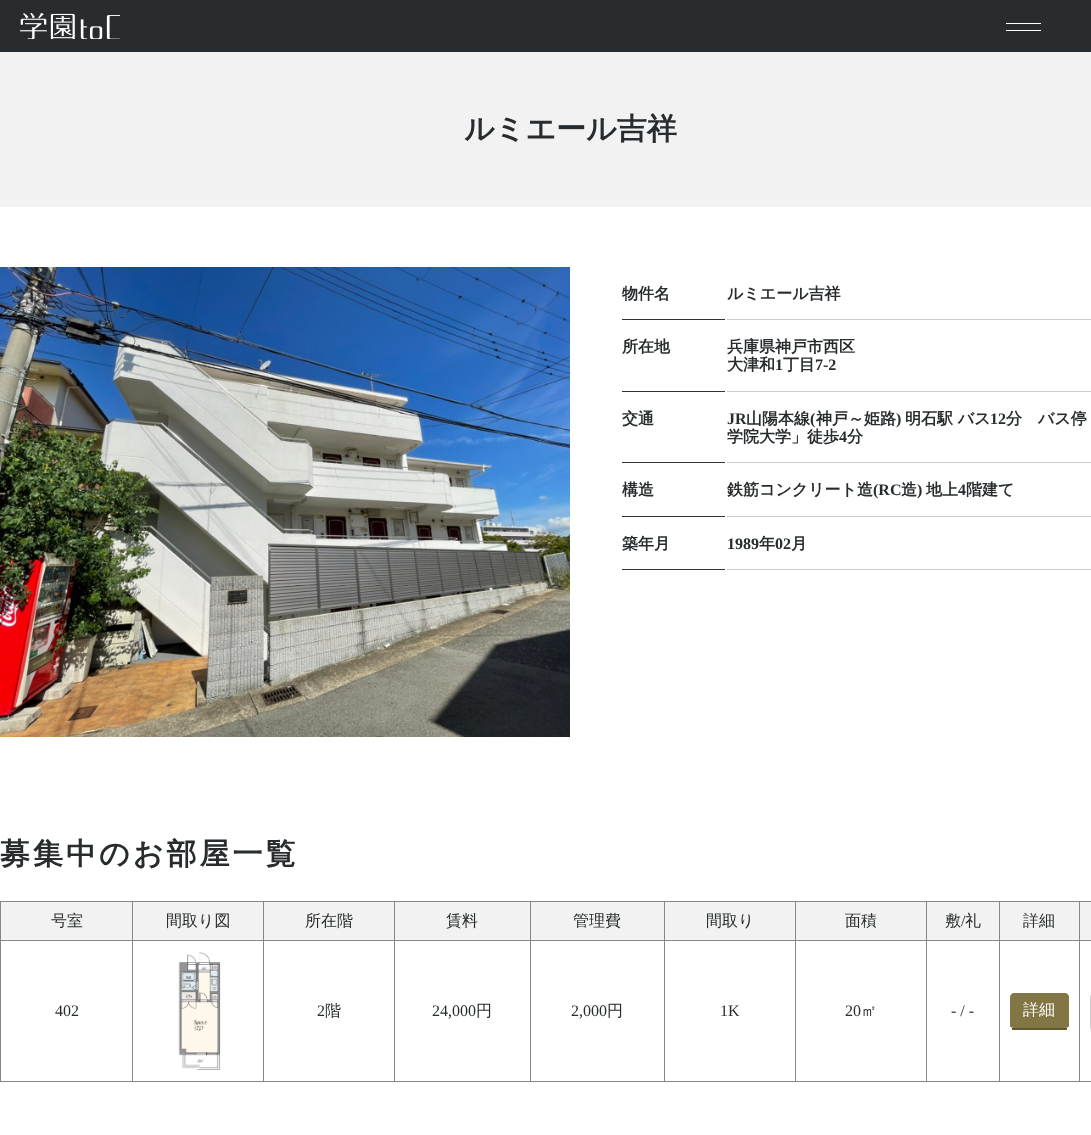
<!DOCTYPE html>
<meta charset="utf-8">
<style>body { margin: 0 } canvas { display: block }</style>
<canvas id="canvas" width="1091" height="1135"></canvas>
<script type="module">
  const canvas = document.getElementById("canvas");
  const g = canvas.getContext("2d");
  g.miterLimit = 4;
  g.fontKerning = "normal";
  function drawText(s, x, y, [font, color]) {
    g.font = font;
    g.fillStyle = color;
    g.fillText(s, x, y);
  }
  function fillBox(x, y, w, h, color) {
    g.fillStyle = color;
    g.fillRect(x, y, w, h);
  }
  async function drawPicture(src, x, y, w, h) {
    const img = new Image();
    img.src = src;
    await img.decode();
    g.drawImage(img, x, y, w, h);
  }

  const s1 = ["bold 30px WenQuanYi Zen Hei", "#282C2E"];
  const s2 = ["bold 16px WenQuanYi Zen Hei", "#282C2E"];
  const s3 = ["bold 16px Liberation Serif", "#282C2E"];
  const s4 = ["500 16px WenQuanYi Zen Hei", "#282C2E"];
  const s5 = ["16px Liberation Serif", "#282C2E"];
  const s6 = ["500 16px WenQuanYi Zen Hei", "#FFFFFF"];

  fillBox(0, 0, 1091, 1135, "#FFFFFF");
  fillBox(0, 0, 1091, 52, "#282C2E");
  await drawPicture("pic1.png", 20, 13, 100, 26);
  fillBox(1006, 23, 35, 1, "#FFFFFF");
  fillBox(1006, 30, 35, 1, "#FFFFFF");
  fillBox(0, 52, 1091, 155, "#F2F2F2");
  drawText("ルミエール吉祥", 464, 139, s1);
  await drawPicture("pic2.png", 0, 267, 570, 470);
  fillBox(622, 319, 103, 1, "#333333");
  drawText("物件名", 622, 299, s2);
  fillBox(727, 319, 364, 1, "#CCCCCC");
  drawText("ルミエール吉祥", 727, 299, s2);
  fillBox(622, 391, 103, 1, "#333333");
  drawText("所在地", 622, 352, s2);
  fillBox(727, 391, 364, 1, "#CCCCCC");
  drawText("兵庫県神戸市西区", 727, 352, s2);
  drawText("大津和", 727, 370, s2);
  drawText("1", 775, 370, s3);
  drawText("丁目", 783, 370, s2);
  drawText("7-2", 815, 370, s3);
  fillBox(622, 462, 103, 1, "#333333");
  drawText("交通", 622, 424, s2);
  fillBox(727, 462, 364, 1, "#CCCCCC");
  drawText("JR", 727, 424, s3);
  drawText("山陽本線", 746, 424, s2);
  drawText("(", 810, 424, s3);
  drawText("神戸～姫路", 816, 424, s2);
  drawText(")", 896, 424, s3);
  drawText("明石駅 バス", 905, 424, s2);
  drawText("12", 990, 424, s3);
  drawText("分　バス停", 1006, 424, s2);
  drawText("学院大学」徒歩", 727, 442, s2);
  drawText("4", 839, 442, s3);
  drawText("分", 847, 442, s2);
  fillBox(622, 516, 103, 1, "#333333");
  drawText("構造", 622, 495, s2);
  fillBox(727, 516, 364, 1, "#CCCCCC");
  drawText("鉄筋コンクリート造", 727, 495, s2);
  drawText("(RC", 873, 495, s3);
  drawText("造", 901, 495, s2);
  drawText(")", 917, 495, s3);
  drawText("地上", 926, 495, s2);
  drawText("4", 958, 495, s3);
  drawText("階建て", 966, 495, s2);
  fillBox(622, 569, 103, 1, "#333333");
  drawText("築年月", 622, 549, s2);
  fillBox(727, 569, 364, 1, "#CCCCCC");
  drawText("1989", 727, 549, s3);
  drawText("年", 759, 549, s2);
  drawText("02", 775, 549, s3);
  drawText("月", 791, 549, s2);
  g.letterSpacing = "3px";
  drawText("募集中のお部屋一覧", 0, 864, s1);
  fillBox(1, 902, 131, 38, "#F2F2F2");
  fillBox(1079, 901, 12, 1, "#878787");
  fillBox(1079, 940, 12, 1, "#878787");
  fillBox(1079, 1081, 12, 1, "#878787");
  fillBox(1079, 940, 1, 142, "#878787");
  fillBox(999, 940, 81, 1, "#878787");
  fillBox(1079, 901, 1, 40, "#878787");
  fillBox(999, 901, 81, 1, "#878787");
  fillBox(999, 1081, 81, 1, "#878787");
  fillBox(999, 940, 1, 142, "#878787");
  fillBox(926, 940, 74, 1, "#878787");
  fillBox(999, 901, 1, 40, "#878787");
  fillBox(926, 901, 74, 1, "#878787");
  fillBox(926, 1081, 74, 1, "#878787");
  fillBox(926, 940, 1, 142, "#878787");
  fillBox(795, 940, 132, 1, "#878787");
  fillBox(926, 901, 1, 40, "#878787");
  fillBox(795, 901, 132, 1, "#878787");
  fillBox(795, 1081, 132, 1, "#878787");
  fillBox(795, 940, 1, 142, "#878787");
  fillBox(664, 940, 132, 1, "#878787");
  fillBox(795, 901, 1, 40, "#878787");
  fillBox(664, 901, 132, 1, "#878787");
  fillBox(664, 1081, 132, 1, "#878787");
  fillBox(664, 940, 1, 142, "#878787");
  fillBox(530, 940, 135, 1, "#878787");
  fillBox(664, 901, 1, 40, "#878787");
  fillBox(530, 901, 135, 1, "#878787");
  fillBox(530, 1081, 135, 1, "#878787");
  fillBox(530, 940, 1, 142, "#878787");
  fillBox(394, 940, 137, 1, "#878787");
  fillBox(530, 901, 1, 40, "#878787");
  fillBox(394, 901, 137, 1, "#878787");
  fillBox(394, 1081, 137, 1, "#878787");
  fillBox(394, 940, 1, 142, "#878787");
  fillBox(263, 940, 132, 1, "#878787");
  fillBox(394, 901, 1, 40, "#878787");
  fillBox(263, 901, 132, 1, "#878787");
  fillBox(263, 1081, 132, 1, "#878787");
  fillBox(263, 940, 1, 142, "#878787");
  fillBox(132, 940, 132, 1, "#878787");
  fillBox(263, 901, 1, 40, "#878787");
  fillBox(132, 901, 132, 1, "#878787");
  fillBox(132, 1081, 132, 1, "#878787");
  fillBox(132, 940, 1, 142, "#878787");
  fillBox(0, 940, 133, 1, "#878787");
  fillBox(132, 901, 1, 40, "#878787");
  fillBox(0, 901, 133, 1, "#878787");
  fillBox(0, 1081, 133, 1, "#878787");
  fillBox(0, 940, 1, 142, "#878787");
  fillBox(0, 901, 1, 40, "#878787");
  g.letterSpacing = "0px";
  drawText("号室", 51, 926, s4);
  fillBox(133, 902, 130, 38, "#F2F2F2");
  drawText("間取り図", 166, 926, s4);
  fillBox(264, 902, 130, 38, "#F2F2F2");
  drawText("所在階", 305, 926, s4);
  fillBox(395, 902, 135, 38, "#F2F2F2");
  drawText("賃料", 446, 926, s4);
  fillBox(531, 902, 133, 38, "#F2F2F2");
  drawText("管理費", 573, 926, s4);
  fillBox(665, 902, 130, 38, "#F2F2F2");
  drawText("間取り", 706, 926, s4);
  fillBox(796, 902, 130, 38, "#F2F2F2");
  drawText("面積", 845, 926, s4);
  fillBox(927, 902, 72, 38, "#F2F2F2");
  drawText("敷", 945, 926, s4);
  drawText("/", 961, 926, s5);
  drawText("礼", 965, 926, s4);
  fillBox(1000, 902, 79, 38, "#F2F2F2");
  drawText("詳細", 1023, 926, s4);
  fillBox(1080, 902, 11, 38, "#F2F2F2");
  drawText("402", 55, 1016, s5);
  await drawPicture("pic3.png", 178, 952, 43, 119);
  drawText("2", 317, 1016, s5);
  drawText("階", 325, 1016, s4);
  drawText("24,000", 432, 1016, s5);
  drawText("円", 476, 1016, s4);
  drawText("2,000", 571, 1016, s5);
  drawText("円", 607, 1016, s4);
  drawText("1K", 720, 1016, s5);
  drawText("20", 845, 1016, s5);
  drawText("㎡", 861, 1016, s4);
  drawText("- / -", 951, 1016, s5);
  g.fillStyle = "#827644";
  g.beginPath();
  g.moveTo(1014, 993);
  g.lineTo(1065, 993);
  g.bezierCurveTo(1067, 993, 1069, 995, 1069, 997);
  g.lineTo(1069, 1026);
  g.bezierCurveTo(1069, 1027, 1067, 1028, 1065, 1028);
  g.lineTo(1014, 1028);
  g.bezierCurveTo(1012, 1028, 1010, 1027, 1010, 1026);
  g.lineTo(1010, 997);
  g.bezierCurveTo(1010, 995, 1012, 993, 1014, 993);
  g.closePath();
  g.fill();
  fillBox(1012, 1028, 55, 2, "#615832");
  drawText("詳細", 1023, 1015, s6);
  g.fillStyle = "#CCCCCC";
  g.beginPath();
  g.moveTo(1090, 1025);
  g.bezierCurveTo(1090, 1032, 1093, 1031, 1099, 1031);
  g.lineTo(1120, 1031);
  g.bezierCurveTo(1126, 1031, 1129, 1032, 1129, 1025);
  g.bezierCurveTo(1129, 1027, 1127, 1029, 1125, 1029);
  g.lineTo(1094, 1029);
  g.bezierCurveTo(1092, 1029, 1090, 1027, 1090, 1025);
  g.closePath();
  g.fill();
  g.beginPath();
  g.roundRect(1090.5, 994.5, 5, 34, 3.5);
  g.strokeStyle = "#CCCCCC";
  g.stroke();
</script>
